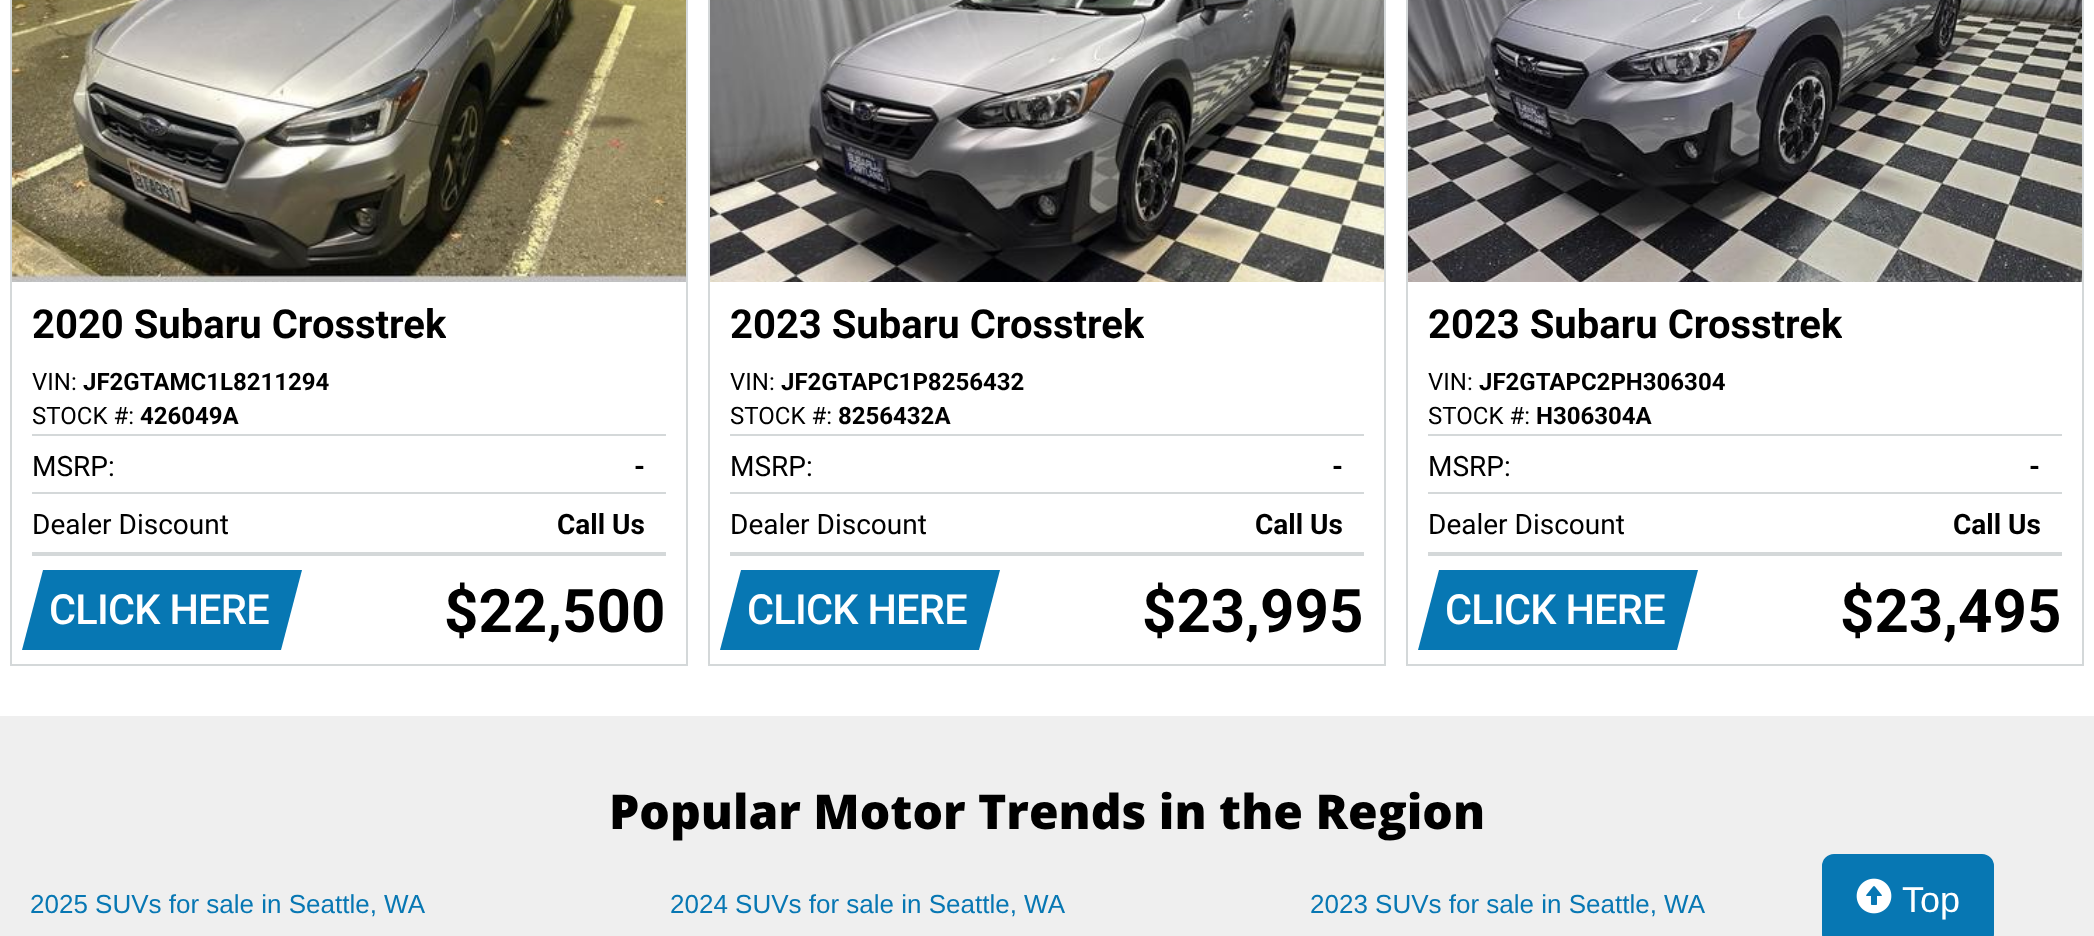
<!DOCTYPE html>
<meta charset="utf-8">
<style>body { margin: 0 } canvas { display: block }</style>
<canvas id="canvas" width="2094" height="936"></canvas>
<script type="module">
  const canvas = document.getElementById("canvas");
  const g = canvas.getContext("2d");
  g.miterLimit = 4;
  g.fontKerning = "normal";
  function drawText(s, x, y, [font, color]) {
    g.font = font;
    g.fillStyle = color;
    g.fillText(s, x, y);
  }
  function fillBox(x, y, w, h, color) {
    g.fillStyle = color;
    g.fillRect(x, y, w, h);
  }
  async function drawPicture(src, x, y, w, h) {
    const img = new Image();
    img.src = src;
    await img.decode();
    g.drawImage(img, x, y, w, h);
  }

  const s1 = ["bold 40px Roboto", "#000000"];
  const s2 = ["24px Roboto", "#000000"];
  const s3 = ["bold 24px Roboto", "#000000"];
  const s4 = ["28px Roboto", "#000000"];
  const s5 = ["bold 28px Roboto", "#000000"];
  const s6 = ["500 41.5px Roboto", "#FFFFFF"];
  const s7 = ["bold 60px Roboto", "#000000"];
  const s8 = ["36px Liberation Sans", "#FFFFFF"];
  const s9 = ["800 48px Open Sans", "#000000"];
  const s10 = ["26px Liberation Sans", "#0777B3"];

  fillBox(0, 0, 2094, 936, "#FFFFFF");
  g.strokeStyle = "#D4D8D9";
  g.lineWidth = 2;
  g.strokeRect(11, -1, 676, 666);
  await drawPicture("pic1.png", 12, 0, 674, 282);
  g.save();
  g.beginPath();
  g.rect(32, 302, 414, 44);
  g.clip();
  drawText("2020 Subaru Crosstrek", 32, 338, s1);
  g.restore();
  drawText("VIN:", 32, 390, s2);
  drawText("JF2GTAMC1L8211294", 83, 390, s3);
  drawText("STOCK #:", 32, 424, s2);
  drawText("426049A", 140, 424, s3);
  fillBox(32, 434, 634, 2, "#D4D8D9");
  fillBox(32, 492, 634, 2, "#D4D8D9");
  drawText("MSRP:", 32, 476, s4);
  drawText("-", 634, 476, s5);
  fillBox(32, 552, 634, 4, "#D4D8D9");
  drawText("Dealer Discount", 32, 534, s4);
  drawText("Call Us", 557, 534, s5);
  g.fillStyle = "#0777B3";
  g.beginPath();
  g.moveTo(43, 570);
  g.lineTo(302, 570);
  g.lineTo(281, 650);
  g.lineTo(22, 650);
  g.closePath();
  g.fill();
  g.letterSpacing = "-0.75px";
  drawText("CLICK HERE", 49, 624, s6);
  g.letterSpacing = "0px";
  drawText("$22,500", 444, 632, s7);
  g.strokeRect(709, -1, 676, 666);
  await drawPicture("pic2.png", 710, 0, 674, 282);
  g.save();
  g.beginPath();
  g.rect(730, 302, 414, 44);
  g.clip();
  drawText("2023 Subaru Crosstrek", 730, 338, s1);
  g.restore();
  drawText("VIN:", 730, 390, s2);
  drawText("JF2GTAPC1P8256432", 781, 390, s3);
  drawText("STOCK #:", 730, 424, s2);
  drawText("8256432A", 838, 424, s3);
  fillBox(730, 434, 634, 2, "#D4D8D9");
  fillBox(730, 492, 634, 2, "#D4D8D9");
  drawText("MSRP:", 730, 476, s4);
  drawText("-", 1332, 476, s5);
  fillBox(730, 552, 634, 4, "#D4D8D9");
  drawText("Dealer Discount", 730, 534, s4);
  drawText("Call Us", 1255, 534, s5);
  g.fillStyle = "#0777B3";
  g.beginPath();
  g.moveTo(741, 570);
  g.lineTo(1000, 570);
  g.lineTo(979, 650);
  g.lineTo(720, 650);
  g.closePath();
  g.fill();
  g.letterSpacing = "-0.75px";
  drawText("CLICK HERE", 747, 624, s6);
  g.letterSpacing = "0px";
  drawText("$23,995", 1142, 632, s7);
  g.strokeRect(1407, -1, 676, 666);
  await drawPicture("pic3.png", 1408, 0, 674, 282);
  g.save();
  g.beginPath();
  g.rect(1428, 302, 414, 44);
  g.clip();
  drawText("2023 Subaru Crosstrek", 1428, 338, s1);
  g.restore();
  drawText("VIN:", 1428, 390, s2);
  drawText("JF2GTAPC2PH306304", 1479, 390, s3);
  drawText("STOCK #:", 1428, 424, s2);
  drawText("H306304A", 1536, 424, s3);
  fillBox(1428, 434, 634, 2, "#D4D8D9");
  fillBox(1428, 492, 634, 2, "#D4D8D9");
  drawText("MSRP:", 1428, 476, s4);
  drawText("-", 2029, 476, s5);
  fillBox(1428, 552, 634, 4, "#D4D8D9");
  drawText("Dealer Discount", 1428, 534, s4);
  drawText("Call Us", 1953, 534, s5);
  g.fillStyle = "#0777B3";
  g.beginPath();
  g.moveTo(1439, 570);
  g.lineTo(1698, 570);
  g.lineTo(1677, 650);
  g.lineTo(1418, 650);
  g.closePath();
  g.fill();
  g.letterSpacing = "-0.75px";
  drawText("CLICK HERE", 1445, 624, s6);
  g.letterSpacing = "0px";
  drawText("$23,495", 1840, 632, s7);
  fillBox(0, 716, 2094, 220, "#EFEFEF");
  g.fillStyle = "#0777B3";
  g.beginPath();
  g.roundRect(1823, 855, 170, 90, 11);
  g.fill();
  g.strokeStyle = "#0777B3";
  g.stroke();
  await drawPicture("pic4.png", 1856, 878, 36, 36);
  drawText("Top", 1902, 912, s8);
  drawText("Popular Motor Trends in the Region", 609, 829, s9);
  drawText("2025 SUVs for sale in Seattle, WA", 30, 913, s10);
  drawText("2024 SUVs for sale in Seattle, WA", 670, 913, s10);
  drawText("2023 SUVs for sale in Seattle, WA", 1310, 913, s10);
</script>
